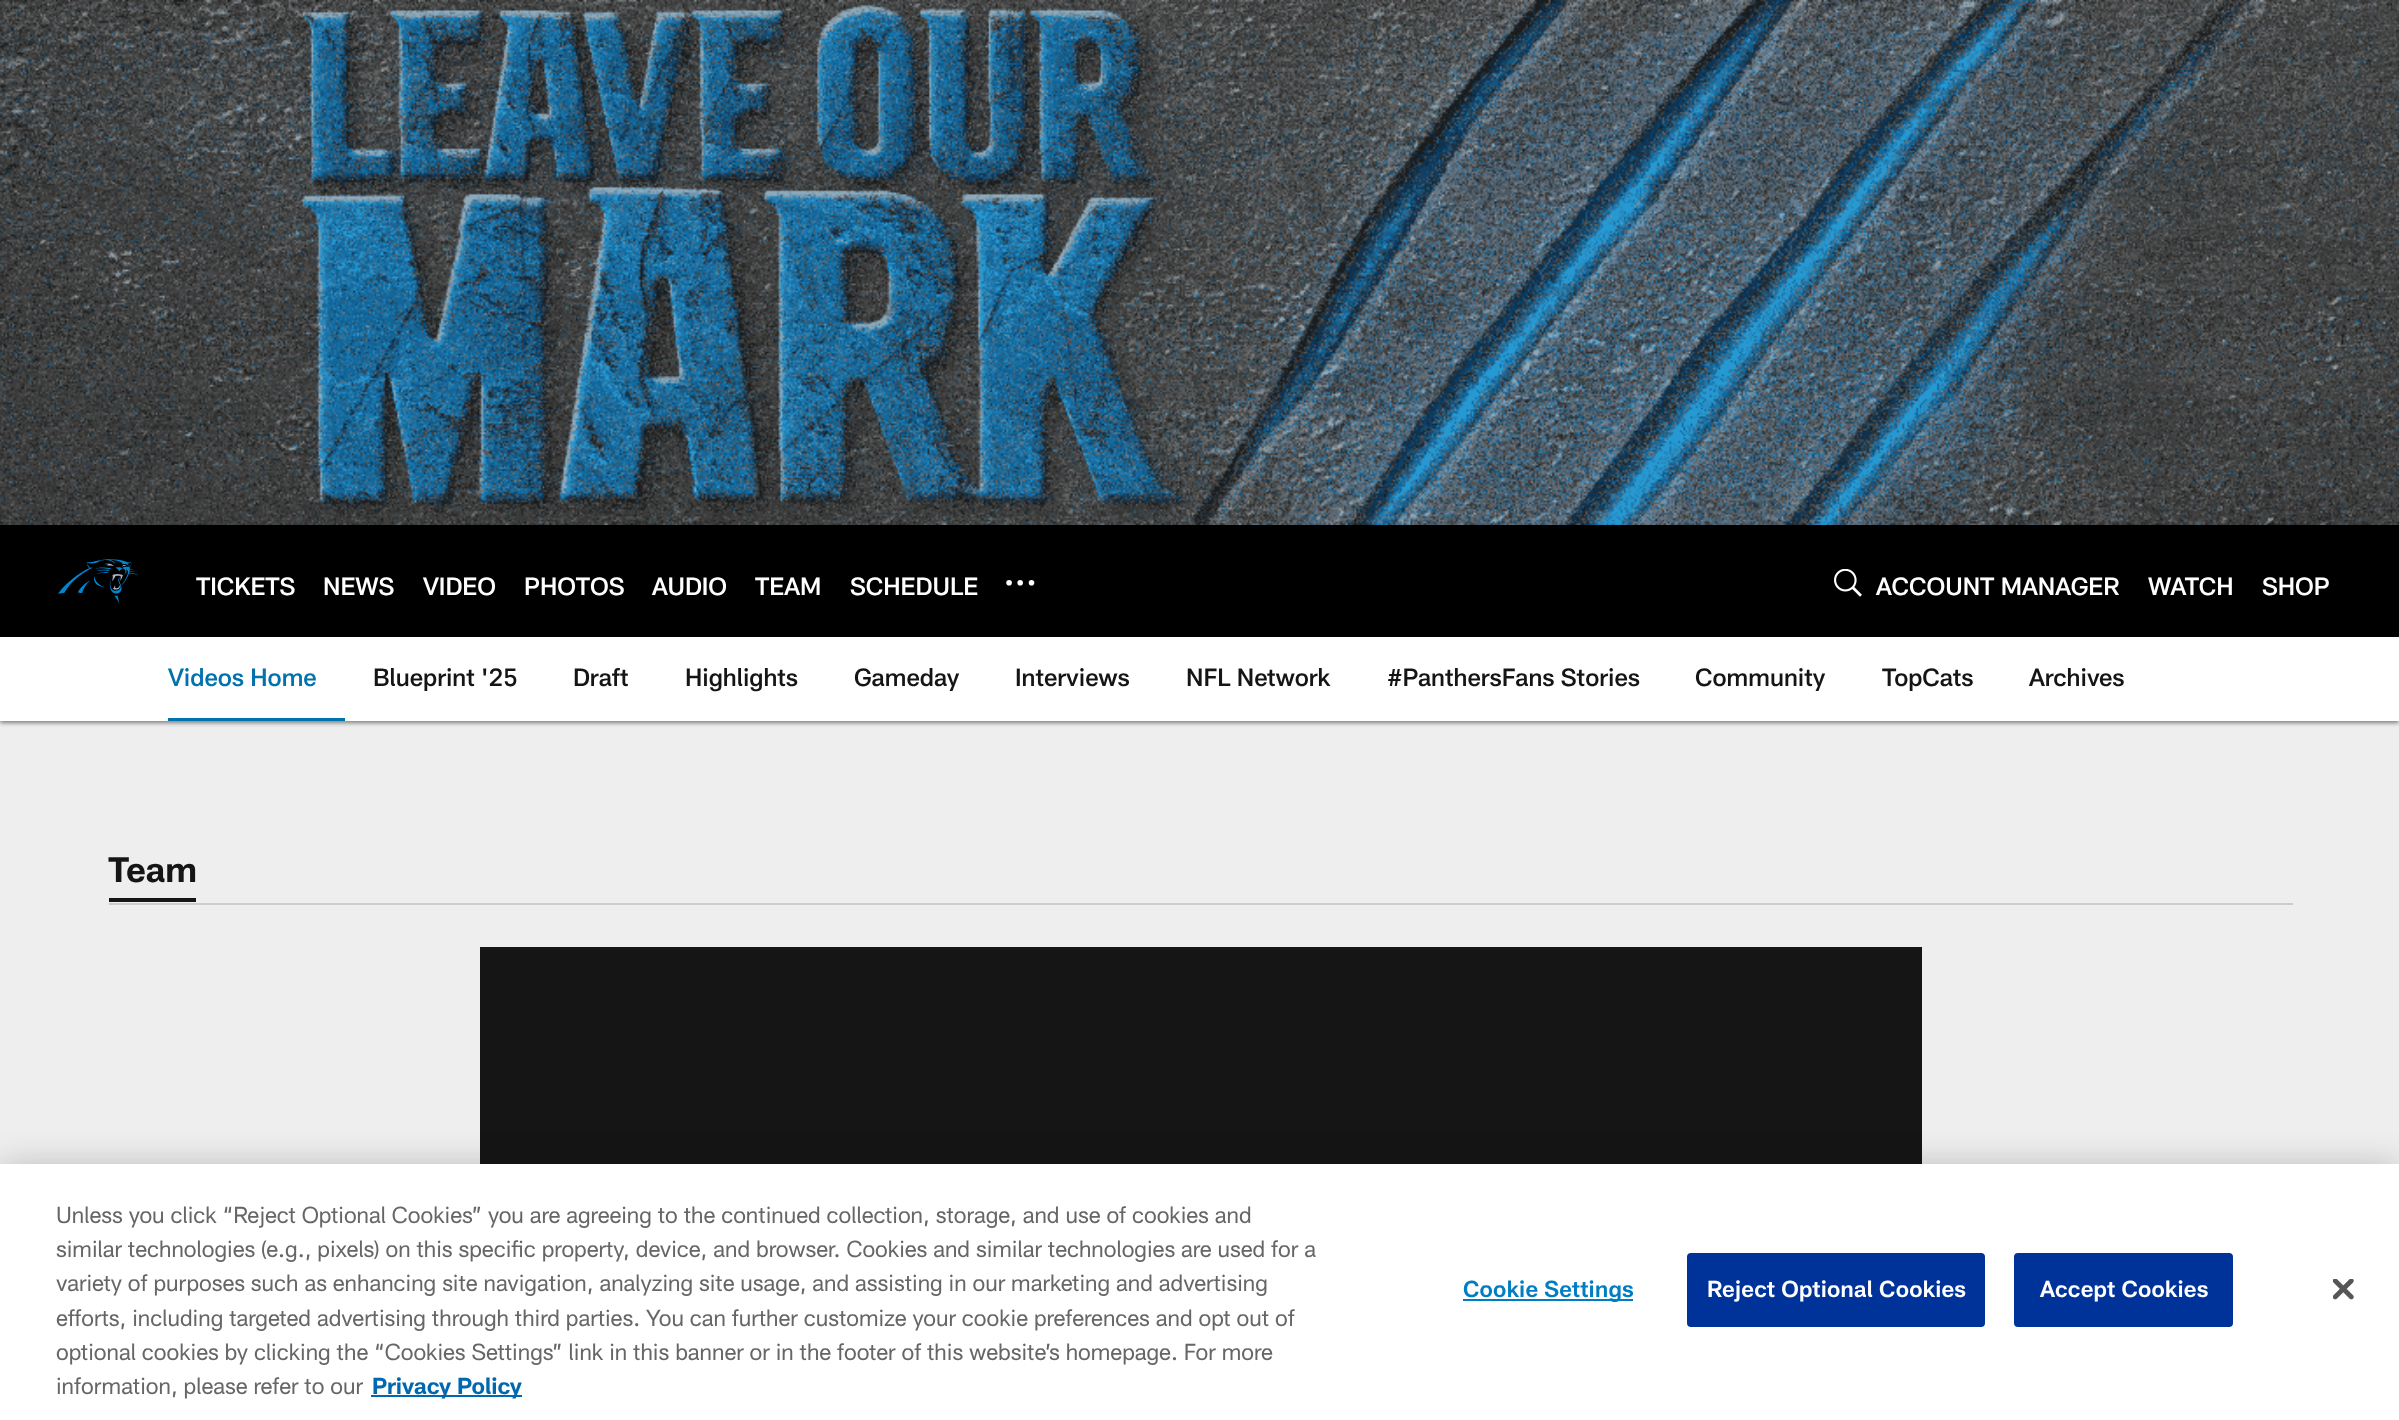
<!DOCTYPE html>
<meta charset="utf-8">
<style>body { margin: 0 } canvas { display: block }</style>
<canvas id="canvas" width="2399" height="1420"></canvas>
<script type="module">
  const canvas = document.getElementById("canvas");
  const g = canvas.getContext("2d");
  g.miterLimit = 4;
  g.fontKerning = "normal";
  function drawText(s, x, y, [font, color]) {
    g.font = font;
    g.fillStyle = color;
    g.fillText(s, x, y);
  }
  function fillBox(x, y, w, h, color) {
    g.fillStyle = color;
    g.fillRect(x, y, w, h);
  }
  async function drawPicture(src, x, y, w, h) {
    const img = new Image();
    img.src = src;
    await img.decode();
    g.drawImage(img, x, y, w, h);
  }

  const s1 = ["500 24.5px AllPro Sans", "#FFFFFF"];
  const s2 = ["500 24.5px AllPro Sans", "#0072AD"];
  const s3 = ["500 24.5px AllPro Sans", "#151515"];
  const s4 = ["bold 35px AllPro Sans", "#151515"];
  const s5 = ["22.75px AllPro Sans", "#666666"];
  const s6 = ["bold 22.75px AllPro Sans", "#0067B1"];
  const s7 = ["600 22.75px AllPro Sans", "#007DC3"];
  const s8 = ["600 22.75px AllPro Sans", "#FFFFFF"];

  fillBox(0, 0, 2399, 1420, "#EEEEEE");
  await drawPicture("pic1.png", 0, 0, 2399, 525);
  g.fillStyle = "rgba(0, 0, 0, 0.47)";
  g.filter = "blur(2px)";
  g.beginPath();
  g.rect(0, 527, 2399, 112);
  g.fill();
  g.filter = "none";
  fillBox(0, 525, 2399, 112, "#000000");
  await drawPicture("pic2.png", 57, 559, 82, 44);
  drawText("TICKETS", 196, 595, s1);
  drawText("NEWS", 323, 595, s1);
  drawText("VIDEO", 423, 595, s1);
  drawText("PHOTOS", 524, 595, s1);
  drawText("AUDIO", 652, 595, s1);
  drawText("TEAM", 755, 595, s1);
  drawText("SCHEDULE", 850, 595, s1);
  g.beginPath();
  g.arc(1031.5, 582.8, 2.8, 0, Math.PI * 2);
  g.fill();
  g.beginPath();
  g.arc(1020.2, 582.8, 2.8, 0, Math.PI * 2);
  g.fill();
  g.beginPath();
  g.arc(1009.1, 582.8, 2.8, 0, Math.PI * 2);
  g.fill();
  await drawPicture("pic3.png", 1834, 569, 28, 28);
  drawText("ACCOUNT MANAGER", 1876, 595, s1);
  drawText("WATCH", 2148, 595, s1);
  drawText("SHOP", 2262, 595, s1);
  g.fillStyle = "rgba(0, 0, 0, 0.47)";
  g.filter = "blur(2px)";
  g.beginPath();
  g.rect(0, 639, 2399, 84);
  g.fill();
  g.filter = "none";
  fillBox(0, 637, 2399, 84, "#FFFFFF");
  fillBox(168, 718, 177, 3, "#0072AD");
  drawText("Videos Home", 168, 686, s2);
  drawText("Blueprint '25", 373, 686, s3);
  drawText("Draft", 573, 686, s3);
  drawText("Highlights", 685, 686, s3);
  drawText("Gameday", 854, 686, s3);
  drawText("Interviews", 1015, 686, s3);
  drawText("NFL Network", 1186, 686, s3);
  drawText("#PanthersFans Stories", 1387, 686, s3);
  drawText("Community", 1695, 686, s3);
  drawText("TopCats", 1882, 686, s3);
  drawText("Archives", 2029, 686, s3);
  fillBox(109, 903, 2184, 2, "#CCCCCC");
  fillBox(109, 898, 87, 4, "#151515");
  drawText("Team", 108, 882, s4);
  fillBox(480, 947, 1442, 217, "#151515");
  g.fillStyle = "rgba(0, 0, 0, 0.2)";
  g.filter = "blur(16px)";
  g.beginPath();
  g.rect(0, 1164, 2399, 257);
  g.fill();
  g.filter = "none";
  fillBox(0, 1164, 2399, 256, "#FFFFFF");
  drawText("Unless you click “Reject Optional Cookies” you are agreeing to the continued collection, storage, and use of cookies and", 56, 1223, s5);
  drawText("similar technologies (e.g., pixels) on this specific property, device, and browser. Cookies and similar technologies are used for a", 56, 1257, s5);
  drawText("variety of purposes such as enhancing site navigation, analyzing site usage, and assisting in our marketing and advertising", 56, 1291, s5);
  drawText("efforts, including targeted advertising through third parties. You can further customize your cookie preferences and opt out of", 56, 1326, s5);
  drawText("optional cookies by clicking the “Cookies Settings” link in this banner or in the footer of this website’s homepage. For more", 56, 1360, s5);
  drawText("information, please refer to our", 56, 1394, s5);
  fillBox(371, 1395, 151, 2, "#0067B1");
  drawText("Privacy Policy", 372, 1394, s6);
  fillBox(1463, 1299, 170, 2, "#007DC3");
  g.letterSpacing = "0.25px";
  drawText("Cookie Settings", 1463, 1297, s7);
  g.fillStyle = "#003399";
  g.beginPath();
  g.roundRect(1688, 1254, 296, 72, 3);
  g.fill();
  g.strokeStyle = "#003399";
  g.lineWidth = 2;
  g.stroke();
  drawText("Reject Optional Cookies", 1707, 1297, s8);
  g.fillStyle = "#003399";
  g.beginPath();
  g.roundRect(2015, 1254, 217, 72, 3);
  g.fill();
  g.stroke();
  drawText("Accept Cookies", 2040, 1297, s8);
  await drawPicture("pic4.png", 2333, 1279, 21, 21);
</script>
